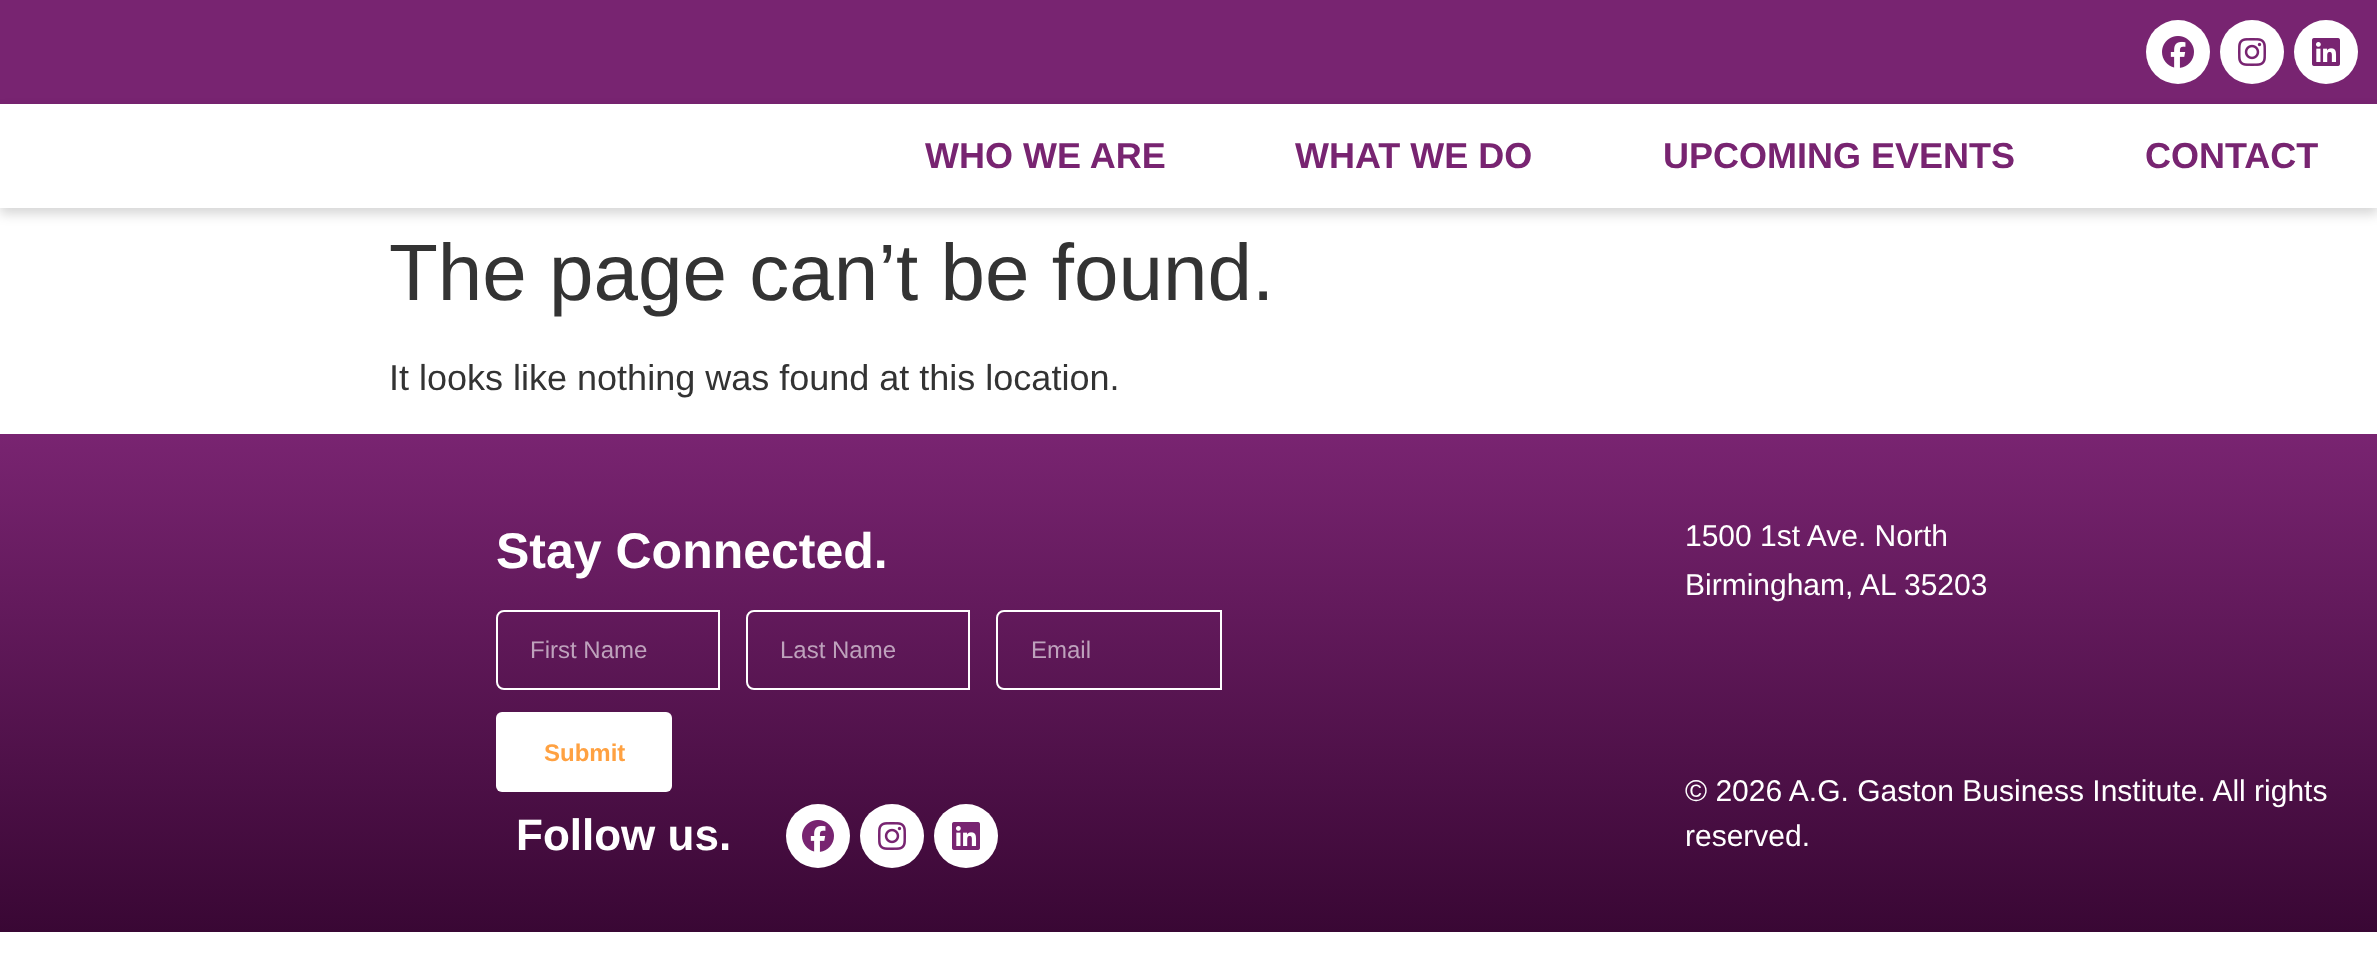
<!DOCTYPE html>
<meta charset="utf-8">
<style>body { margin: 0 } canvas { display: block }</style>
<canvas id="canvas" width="2377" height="974"></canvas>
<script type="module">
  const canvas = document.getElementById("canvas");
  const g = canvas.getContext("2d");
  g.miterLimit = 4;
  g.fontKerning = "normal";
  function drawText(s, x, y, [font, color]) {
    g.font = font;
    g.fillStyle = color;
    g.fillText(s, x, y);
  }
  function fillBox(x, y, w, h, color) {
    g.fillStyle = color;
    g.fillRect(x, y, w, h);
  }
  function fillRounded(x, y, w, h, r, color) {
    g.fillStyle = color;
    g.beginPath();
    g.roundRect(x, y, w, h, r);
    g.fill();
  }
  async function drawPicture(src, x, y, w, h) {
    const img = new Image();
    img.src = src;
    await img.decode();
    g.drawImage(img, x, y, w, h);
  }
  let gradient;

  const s1 = ["bold 36px Liberation Sans", "#782471"];
  const s2 = ["80px Liberation Sans", "#333333"];
  const s3 = ["36px Liberation Sans", "#333333"];
  const s4 = ["bold 50px Liberation Sans", "#FFFFFF"];
  const s5 = ["24px Liberation Sans", "#BEA2BC"];
  const s6 = ["bold 24px Liberation Sans", "#FFA141"];
  const s7 = ["bold 44px Liberation Sans", "#FFFFFF"];
  const s8 = ["30px Liberation Sans", "#FFFFFF"];

  fillBox(0, 0, 2377, 974, "#FFFFFF");
  fillBox(0, 0, 2377, 104, "#782471");
  g.fillStyle = "#FFFFFF";
  g.beginPath();
  g.arc(2178, 52, 32, 0, Math.PI * 2);
  g.fill();
  await drawPicture("pic1.png", 2162, 36, 32, 32);
  g.beginPath();
  g.arc(2252, 52, 32, 0, Math.PI * 2);
  g.fill();
  await drawPicture("pic2.png", 2238, 38, 28, 28);
  g.beginPath();
  g.arc(2326, 52, 32, 0, Math.PI * 2);
  g.fill();
  await drawPicture("pic3.png", 2312, 38, 28, 28);
  g.save();
  g.beginPath();
  g.moveTo(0, 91);
  g.lineTo(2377, 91);
  g.lineTo(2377, 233);
  g.lineTo(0, 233);
  g.closePath();
  g.moveTo(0, 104);
  g.lineTo(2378, 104);
  g.lineTo(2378, 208);
  g.lineTo(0, 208);
  g.closePath();
  g.clip("evenodd");
  g.fillStyle = "rgba(0, 0, 0, 0.16)";
  g.filter = "blur(6px)";
  g.beginPath();
  g.rect(0, 110, 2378, 104);
  g.fill();
  g.filter = "none";
  g.restore();
  drawText("WHO WE ARE", 925, 168, s1);
  drawText("WHAT WE DO", 1295, 168, s1);
  drawText("UPCOMING EVENTS", 1663, 168, s1);
  drawText("CONTACT", 2145, 168, s1);
  drawText("The page can’t be found.", 389, 300, s2);
  drawText("It looks like nothing was found at this location.", 389, 390, s3);
  gradient = g.createLinearGradient(1189, 434, 1189, 932);
  gradient.addColorStop(0, "#792471");
  gradient.addColorStop(1, "#390734");
  g.fillStyle = gradient;
  g.fillRect(0, 434, 2377, 498);
  drawText("Stay Connected.", 496, 568, s4);
  g.beginPath();
  g.roundRect(497, 611, 222, 78, [7, 0, 0, 7]);
  g.strokeStyle = "#FFFFFF";
  g.lineWidth = 2;
  g.stroke();
  drawText("First Name", 530, 658, s5);
  g.beginPath();
  g.roundRect(747, 611, 222, 78, [7, 0, 0, 7]);
  g.stroke();
  drawText("Last Name", 780, 658, s5);
  g.beginPath();
  g.roundRect(997, 611, 224, 78, [7, 0, 0, 7]);
  g.stroke();
  drawText("Email", 1031, 658, s5);
  fillRounded(496, 712, 176, 80, 6, "#FFFFFF");
  drawText("Submit", 544, 761, s6);
  drawText("Follow us.", 516, 850, s7);
  g.beginPath();
  g.arc(818, 836, 32, 0, Math.PI * 2);
  g.fill();
  await drawPicture("pic1.png", 802, 820, 32, 32);
  g.beginPath();
  g.arc(892, 836, 32, 0, Math.PI * 2);
  g.fill();
  await drawPicture("pic2.png", 878, 822, 28, 28);
  g.beginPath();
  g.arc(966, 836, 32, 0, Math.PI * 2);
  g.fill();
  await drawPicture("pic3.png", 952, 822, 28, 28);
  drawText("1500 1st Ave. North", 1685, 546, s8);
  drawText("Birmingham, AL 35203", 1685, 595, s8);
  drawText("© 2026 A.G. Gaston Business Institute. All rights", 1685, 801, s8);
  drawText("reserved.", 1685, 846, s8);
</script>
